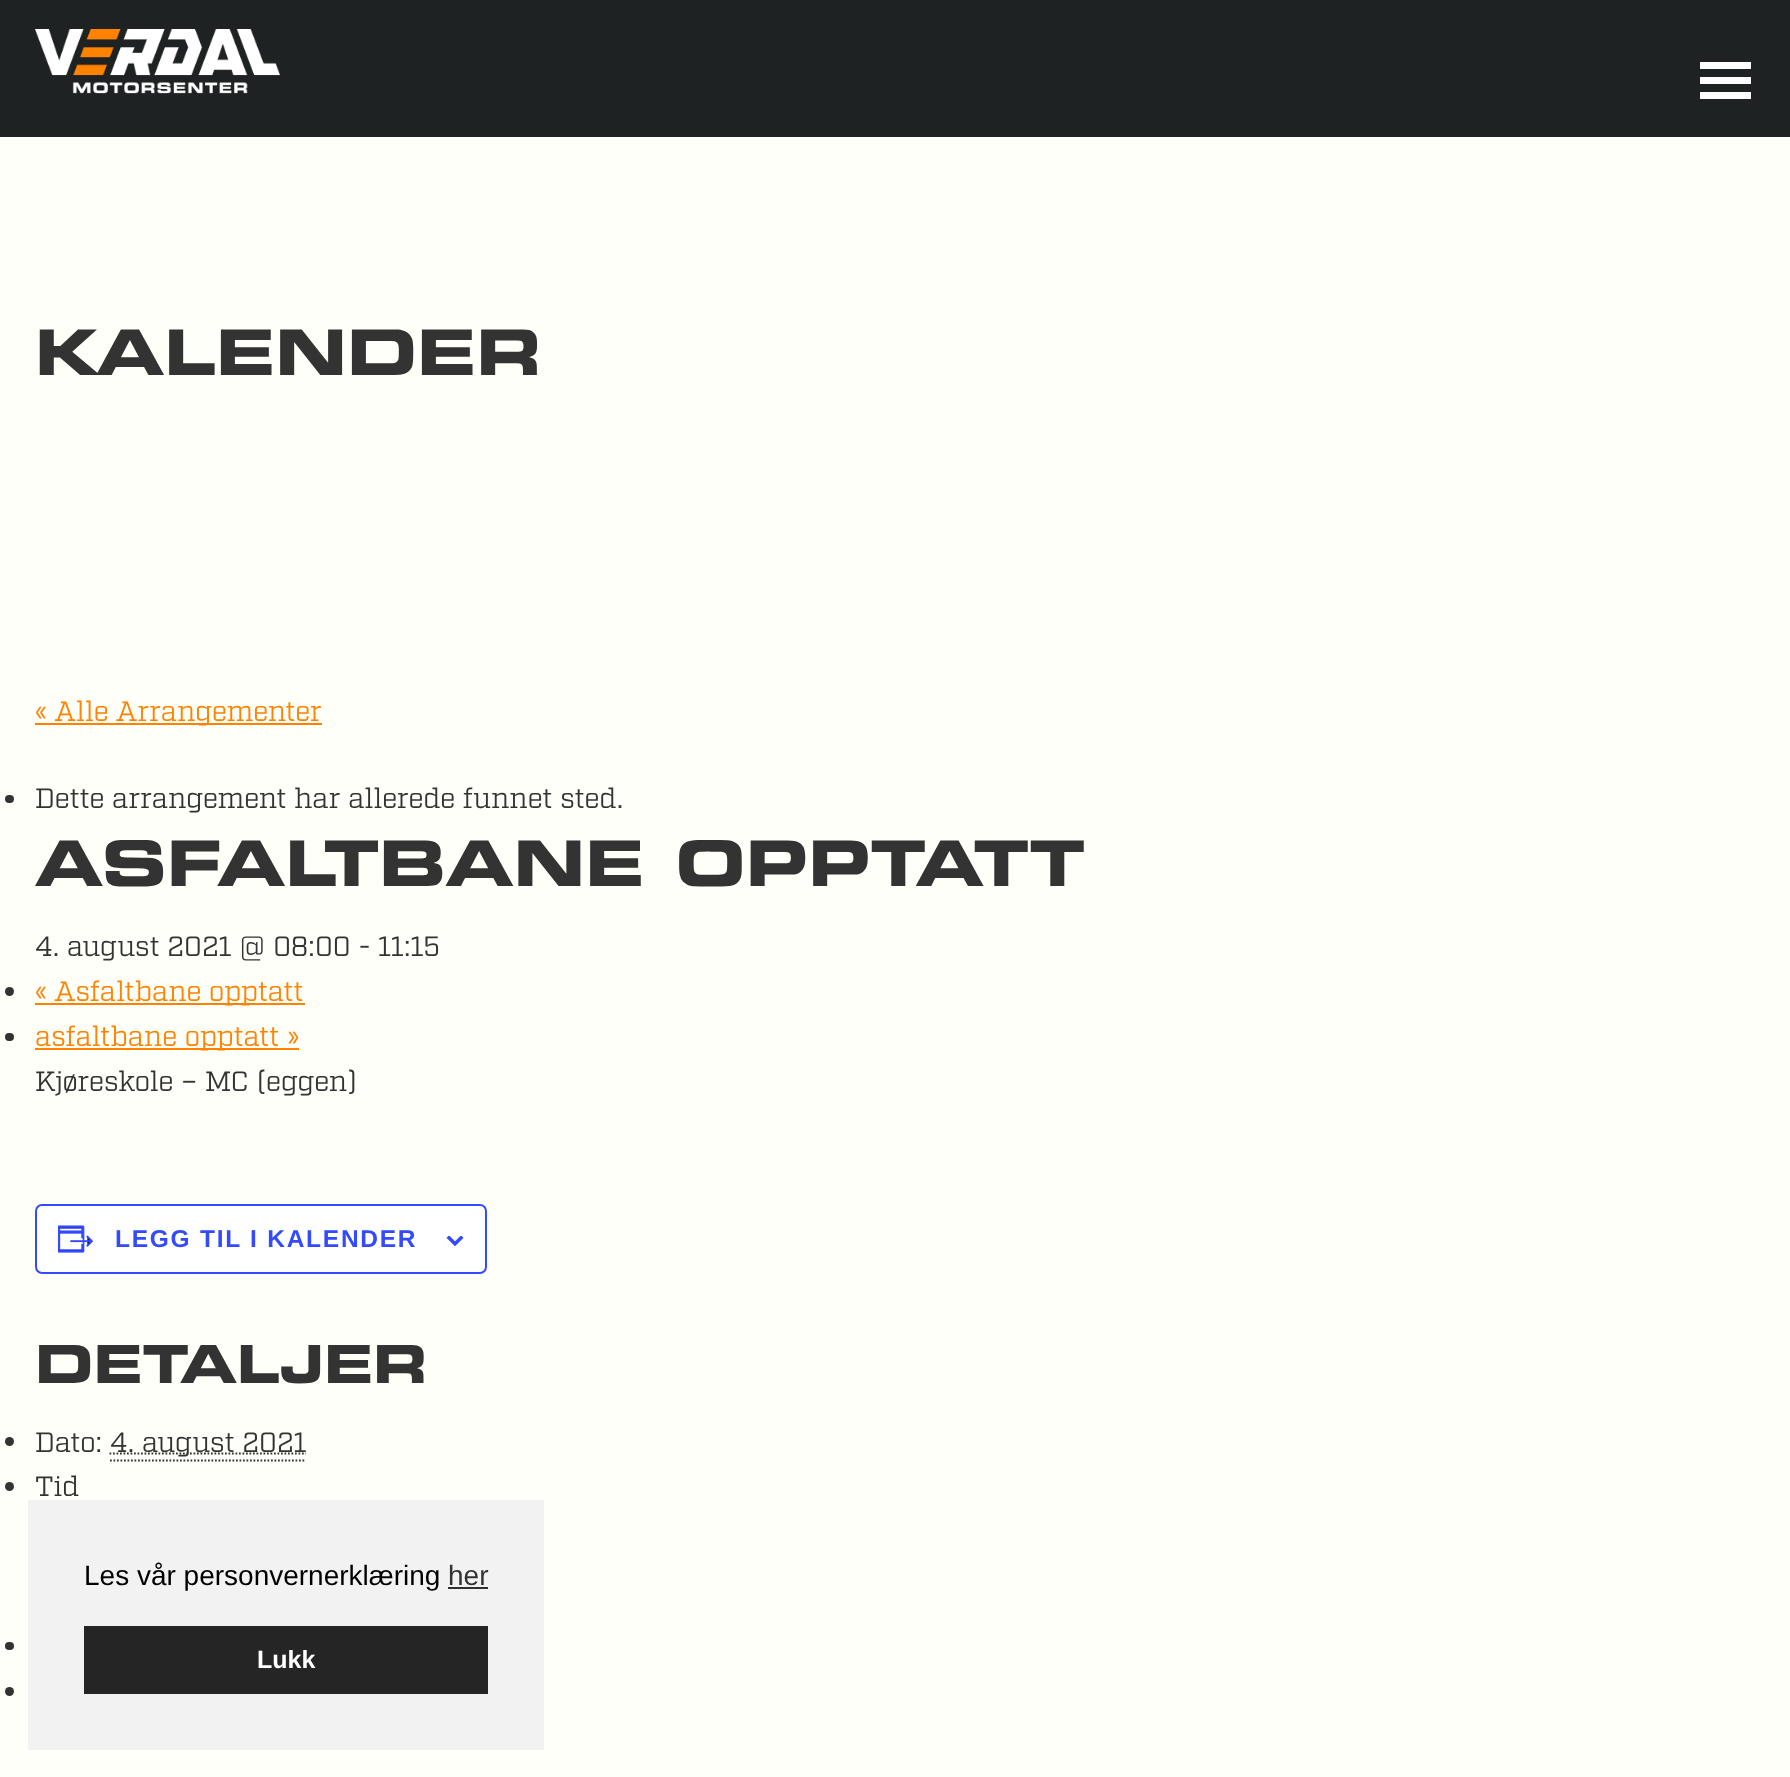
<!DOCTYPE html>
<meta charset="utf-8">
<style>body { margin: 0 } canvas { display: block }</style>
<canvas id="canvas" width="1790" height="1777"></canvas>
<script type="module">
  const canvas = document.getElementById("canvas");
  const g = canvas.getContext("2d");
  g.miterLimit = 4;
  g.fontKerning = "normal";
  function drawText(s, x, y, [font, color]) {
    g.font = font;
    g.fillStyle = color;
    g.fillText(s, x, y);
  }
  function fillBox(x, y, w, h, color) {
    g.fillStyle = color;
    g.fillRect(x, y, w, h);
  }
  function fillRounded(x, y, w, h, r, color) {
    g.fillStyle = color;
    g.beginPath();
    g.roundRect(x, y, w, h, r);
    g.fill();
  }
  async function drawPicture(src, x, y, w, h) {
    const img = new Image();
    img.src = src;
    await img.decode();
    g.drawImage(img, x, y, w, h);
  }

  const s1 = ["bold 63px 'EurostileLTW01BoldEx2'", "#333333"];
  const s2 = ["28px 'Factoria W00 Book'", "#FF8200"];
  const s3 = ["28px 'Factoria W00 Book'", "#333333"];
  const s4 = ["bold 24.5px Liberation Sans", "#334AFF"];
  const s5 = ["bold 52.5px 'EurostileLTW01BoldEx2'", "#333333"];
  const s6 = ["28px Liberation Sans", "#000000"];
  const s7 = ["28px Liberation Sans", "#333333"];
  const s8 = ["bold 25px Liberation Sans", "#FFFFFF"];

  fillBox(0, 0, 1790, 1777, "#FFFFF9");
  fillBox(0, 0, 1790, 137, "#1F2223");
  await drawPicture("pic1.png", 35, 29, 245, 65);
  g.fillStyle = "#FFFFFF";
  g.beginPath();
  g.moveTo(1700, 99);
  g.lineTo(1751, 99);
  g.lineTo(1751, 92);
  g.lineTo(1700, 92);
  g.closePath();
  g.moveTo(1700, 62);
  g.lineTo(1700, 69);
  g.lineTo(1751, 69);
  g.lineTo(1751, 62);
  g.closePath();
  g.moveTo(1700, 84);
  g.lineTo(1751, 84);
  g.lineTo(1751, 77);
  g.lineTo(1700, 77);
  g.closePath();
  g.fill();
  drawText("KALENDER", 35, 375, s1);
  fillBox(35, 723, 287, 2, "#FF8200");
  drawText("« Alle Arrangementer", 35, 721, s2);
  fillRounded(5, 795, 9, 8, 4, "#333333");
  drawText("Dette arrangement har allerede funnet sted.", 35, 808, s3);
  drawText("ASFALTBANE OPPTATT", 35, 886, s1);
  drawText("4. august 2021 @ 08:00 - 11:15", 35, 956, s3);
  g.beginPath();
  g.arc(9.5, 991.5, 4.5, 0, Math.PI * 2);
  g.fill();
  drawText("«", 35, 1001, s2);
  fillBox(35, 1003, 270, 2, "#FF8200");
  drawText("Asfaltbane opptatt", 54, 1001, s2);
  fillRounded(5, 1033, 9, 8, 4, "#333333");
  fillBox(35, 1048, 264, 2, "#FF8200");
  drawText("asfaltbane opptatt »", 35, 1046, s2);
  drawText("Kjøreskole – MC (eggen)", 35, 1091, s3);
  g.fillStyle = "#FFFFFF";
  g.beginPath();
  g.roundRect(36, 1205, 450, 68, 6);
  g.fill();
  g.strokeStyle = "#334AFF";
  g.lineWidth = 2;
  g.stroke();
  await drawPicture("pic2.png", 58, 1225, 35, 28);
  g.letterSpacing = "1.75px";
  drawText("LEGG TIL I KALENDER", 115, 1247, s4);
  await drawPicture("pic3.png", 446, 1236, 18, 10);
  g.letterSpacing = "0px";
  drawText("DETALJER", 35, 1383, s5);
  g.beginPath();
  g.arc(9.5, 1441.5, 4.5, 0, Math.PI * 2);
  g.fill();
  drawText("Dato:", 35, 1452, s3);
  g.beginPath();
  g.moveTo(109.5, 1453.5);
  g.lineTo(306, 1453.5);
  g.strokeStyle = "#333333";
  g.lineWidth = 1.8;
  g.setLineDash([1.75, 1.75]);
  g.stroke();
  drawText("4. august 2021", 110, 1452, s3);
  g.beginPath();
  g.moveTo(110, 1460.5);
  g.lineTo(306, 1460.5);
  g.stroke();
  g.beginPath();
  g.arc(9.5, 1486.5, 4.5, 0, Math.PI * 2);
  g.fill();
  drawText("Tid", 35, 1496, s3);
  fillRounded(5, 1642, 9, 8, 4, "#333333");
  g.beginPath();
  g.arc(9.5, 1691.5, 4.5, 0, Math.PI * 2);
  g.fill();
  fillBox(28, 1500, 516, 250, "#F2F2F2");
  drawText("Les vår personvernerklæring", 84, 1585, s6);
  drawText("her", 448, 1585, s7);
  fillBox(448, 1587, 40, 2, "#303030");
  fillBox(84, 1626, 404, 68, "#252525");
  drawText("Lukk", 257, 1668, s8);
</script>
